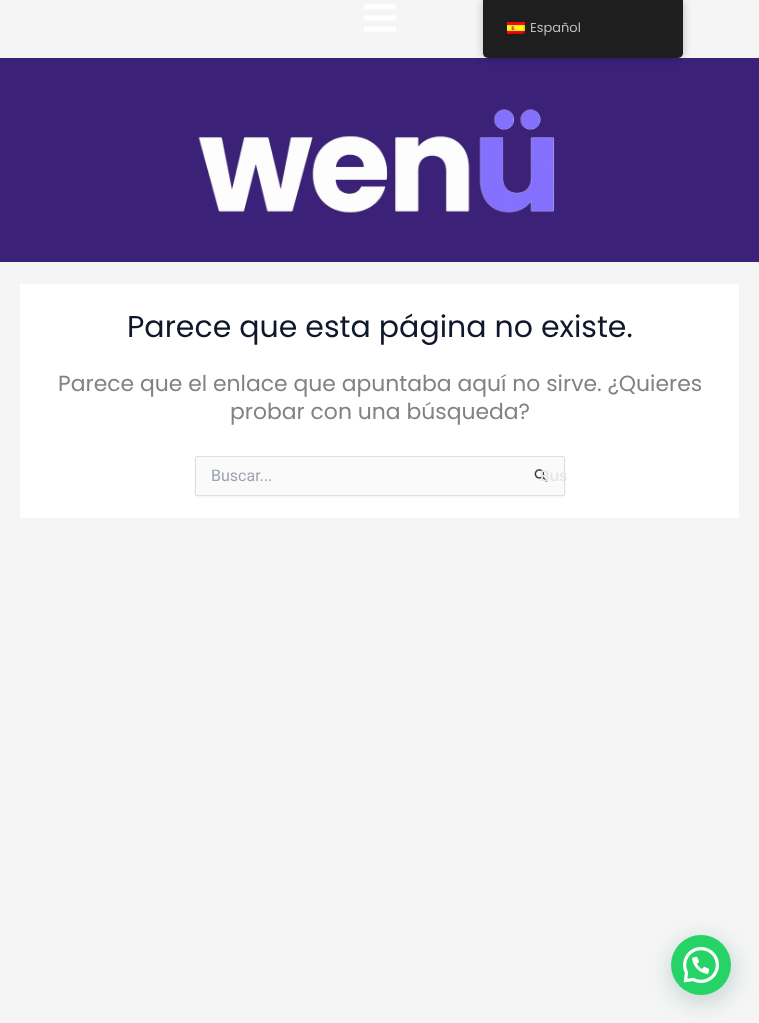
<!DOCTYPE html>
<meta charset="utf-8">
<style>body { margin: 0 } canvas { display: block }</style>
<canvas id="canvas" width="759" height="1023"></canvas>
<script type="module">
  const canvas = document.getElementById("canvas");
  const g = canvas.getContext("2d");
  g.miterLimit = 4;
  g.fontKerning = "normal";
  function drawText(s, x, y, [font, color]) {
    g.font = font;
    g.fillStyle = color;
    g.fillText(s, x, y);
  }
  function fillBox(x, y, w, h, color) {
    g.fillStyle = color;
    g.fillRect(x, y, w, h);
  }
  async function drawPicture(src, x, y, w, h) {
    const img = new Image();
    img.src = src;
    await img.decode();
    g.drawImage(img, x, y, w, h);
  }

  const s1 = ["13px Poppins", "#BDBDBD"];
  const s2 = ["30px Poppins", "#0F172A"];
  const s3 = ["21.9px Poppins", "#808285"];
  const s4 = ["16px Roboto", "#9CA3AF"];
  const s5 = ["500 15px Poppins", "#E5E5E5"];

  fillBox(0, 0, 759, 1023, "#F5F5F5");
  fillBox(0, 58, 759, 204, "#3C2179");
  g.fillStyle = "rgba(0, 0, 0, 0.25)";
  g.filter = "blur(4px)";
  g.beginPath();
  g.roundRect(483, 0, 200, 58, 5);
  g.fill();
  g.filter = "none";
  g.fillStyle = "#1E1E1E";
  g.beginPath();
  g.roundRect(483, 0, 200, 58, [0, 0, 5, 5]);
  g.fill();
  await drawPicture("pic1.png", 507, 22, 18, 12);
  drawText("Español", 530, 32, s1);
  await drawPicture("pic2.png", 364, 4, 32, 28);
  await drawPicture("pic3.png", 198, 109, 357, 104);
  fillBox(20, 284, 719, 234, "#FFFFFF");
  drawText("Parece que esta página no existe.", 127, 337, s2);
  drawText("Parece que el enlace que apuntaba aquí no sirve. ¿Quieres", 58, 391, s3);
  drawText("probar con una búsqueda?", 230, 419, s3);
  g.fillStyle = "rgba(0, 0, 0, 0.05)";
  g.filter = "blur(1px)";
  g.beginPath();
  g.roundRect(195, 457, 370, 40, 2);
  g.fill();
  g.filter = "none";
  g.fillStyle = "#FAFAFA";
  g.beginPath();
  g.roundRect(195.5, 456.5, 369, 39, 1.5);
  g.fill();
  g.strokeStyle = "#DDDDDD";
  g.stroke();
  drawText("Buscar...", 211, 481, s4);
  await drawPicture("pic4.png", 534, 469, 14, 13);
  drawText("Bus", 540, 481, s5);
  g.fillStyle = "rgba(7, 94, 84, 0.24)";
  g.filter = "blur(12px)";
  g.beginPath();
  g.roundRect(672, 941, 60, 60, 30);
  g.fill();
  g.filter = "none";
  g.fillStyle = "#25D366";
  g.beginPath();
  g.arc(701, 965, 30, 0, Math.PI * 2);
  g.fill();
  await drawPicture("pic5.png", 683, 947, 36, 36);
</script>
